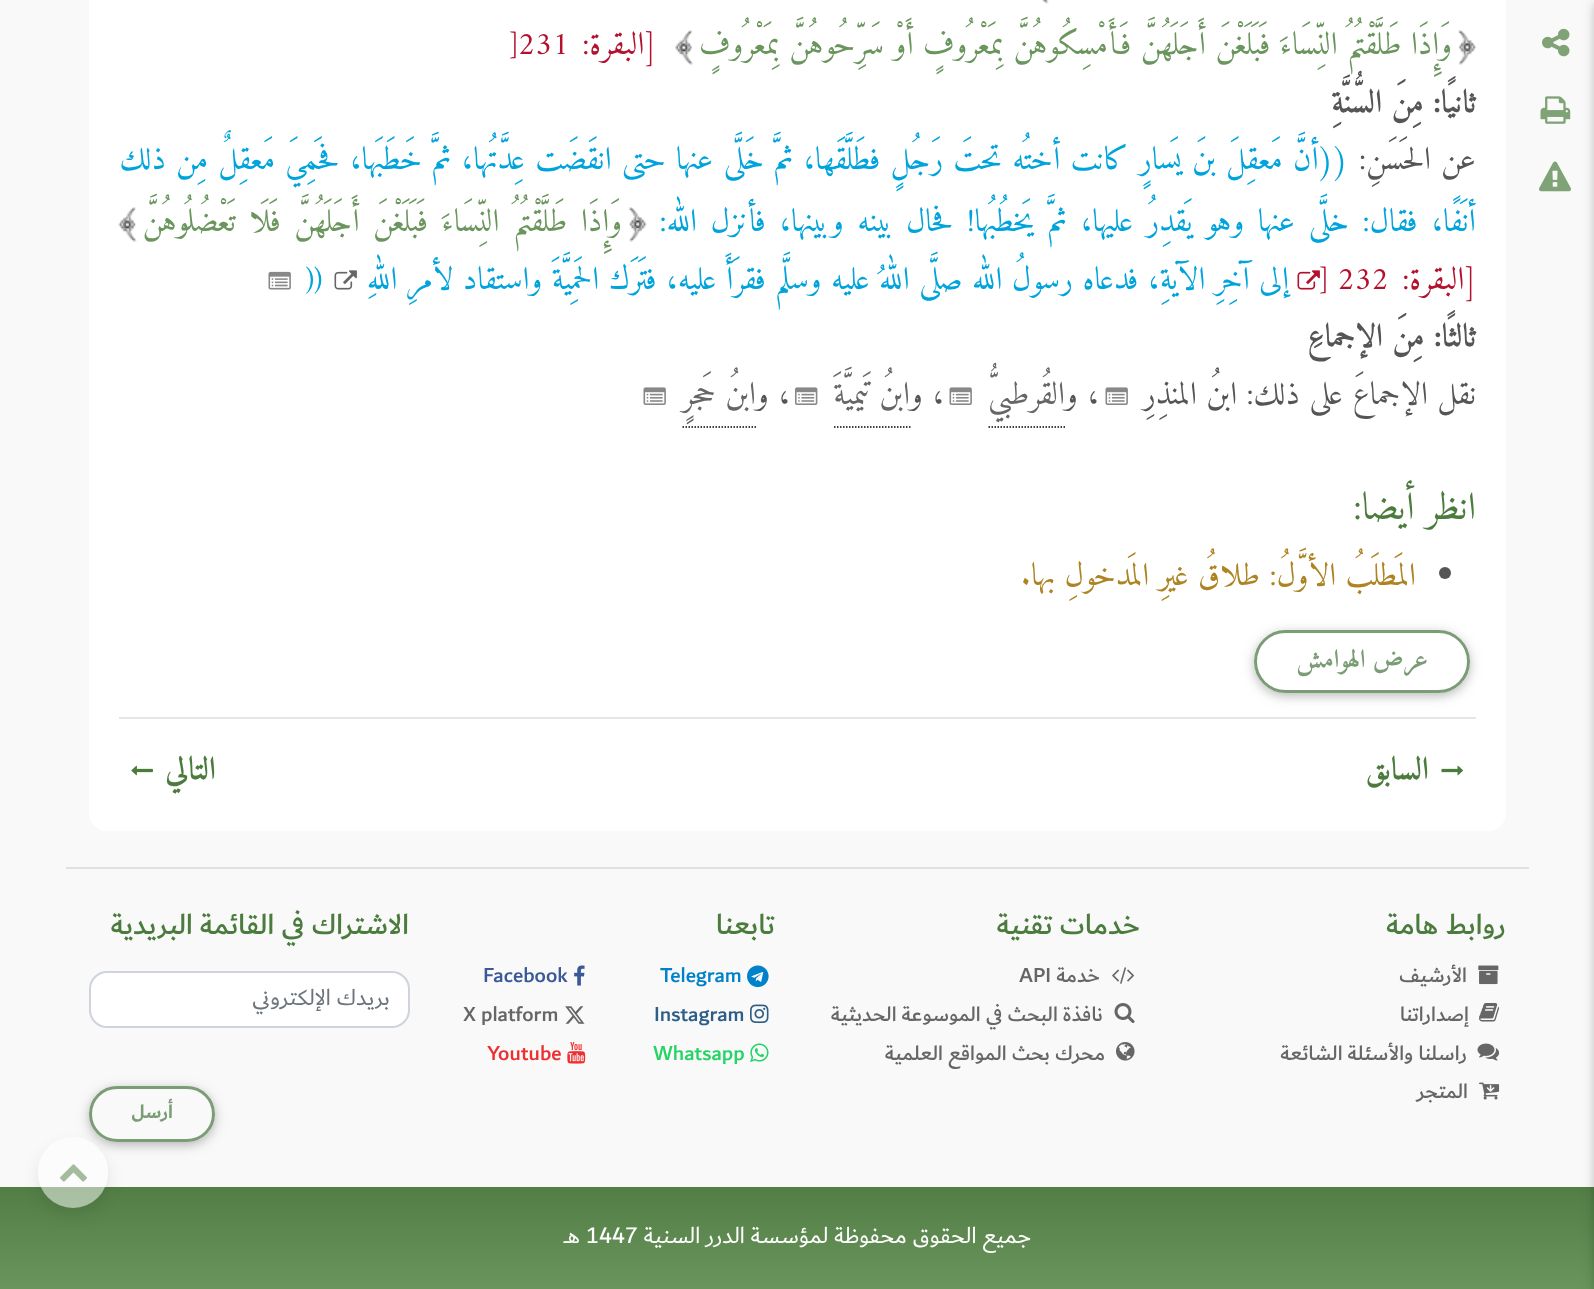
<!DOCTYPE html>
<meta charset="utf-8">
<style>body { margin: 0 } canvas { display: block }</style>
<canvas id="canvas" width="1594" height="1289"></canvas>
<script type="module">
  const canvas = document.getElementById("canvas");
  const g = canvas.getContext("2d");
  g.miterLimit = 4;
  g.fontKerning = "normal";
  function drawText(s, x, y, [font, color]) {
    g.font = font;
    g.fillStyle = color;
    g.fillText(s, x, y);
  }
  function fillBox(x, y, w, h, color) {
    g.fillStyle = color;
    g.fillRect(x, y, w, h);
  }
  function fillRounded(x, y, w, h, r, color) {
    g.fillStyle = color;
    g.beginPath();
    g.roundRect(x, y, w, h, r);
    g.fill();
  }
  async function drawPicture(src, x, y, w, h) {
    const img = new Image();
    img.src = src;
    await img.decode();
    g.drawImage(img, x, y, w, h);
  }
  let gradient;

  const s1 = ["32px Amiri", "#6A965D"];
  const s2 = ["32px Amiri", "#B3112E"];
  const s3 = ["bold 32px Amiri", "#555555"];
  const s4 = ["32px Amiri", "#00A4DD"];
  const s5 = ["32px Amiri", "#555555"];
  const s6 = ["32px Amiri", "#666666"];
  const s7 = ["38.5px Amiri", "#4B7C3D"];
  const s8 = ["32px Amiri", "#AE8422"];
  const s9 = ["bold 25.5px Amiri", "#7A9D75"];
  const s10 = ["bold 32px Amiri", "#4B7C3D"];
  const s11 = ["500 30px 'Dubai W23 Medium'", "#4B7C3D"];
  const s12 = ["500 21.6px 'Dubai W23 Medium'", "#666666"];
  const s13 = ["500 21.6px 'Dubai W23 Medium'", "#0082CA"];
  const s14 = ["500 21.6px 'Dubai W23 Medium'", "#2E5E86"];
  const s15 = ["500 21.6px 'Dubai W23 Medium'", "#25D366"];
  const s16 = ["500 21.6px 'Dubai W23 Medium'", "#3B5998"];
  const s17 = ["500 21.6px 'Dubai W23 Medium'", "#ED302F"];
  const s18 = ["24px 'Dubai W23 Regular'", "#6C757D"];
  const s19 = ["bold 20px 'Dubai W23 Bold'", "#7A9D75"];
  const s20 = ["24px 'Dubai W23 Regular'", "#FFFFFF"];

  fillBox(0, 0, 1594, 1289, "#F9F9F9");
  gradient = g.createLinearGradient(797, 1186, 797, 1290);
  gradient.addColorStop(0, "#527E45");
  gradient.addColorStop(0.25, "#58844B");
  gradient.addColorStop(0.5, "#5E8A51");
  gradient.addColorStop(0.75, "#649057");
  gradient.addColorStop(1, "#6A965D");
  g.fillStyle = gradient;
  g.fillRect(0, 1187, 1594, 102);
  g.fillStyle = "rgba(0, 0, 0, 0.12)";
  g.filter = "blur(7.5px)";
  g.beginPath();
  g.rect(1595, 3, 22, 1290);
  g.fill();
  g.filter = "none";
  g.fillStyle = "rgba(0, 0, 0, 0.16)";
  g.filter = "blur(4px)";
  g.beginPath();
  g.rect(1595, 3, 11, 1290);
  g.fill();
  g.filter = "none";
  await drawPicture("pic1.png", 1542, 28, 28, 29);
  await drawPicture("pic2.png", 1540, 96, 31, 28);
  await drawPicture("pic3.png", 1539, 161, 32, 31);
  fillRounded(89, -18, 1417, 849, 18, "#FFFFFF");
  await drawPicture("pic4.png", 1042, 0, 7, 4);
  await drawPicture("pic5.png", 1458, 30, 18, 35);
  g.direction = "rtl";
  drawText("وَإِذَا طَلَّقْتُمُ النِّسَاءَ فَبَلَغْنَ أَجَلَهُنَّ فَأَمْسِكُوهُنَّ بِمَعْرُوفٍ أَوْ سَرِّحُوهُنَّ بِمَعْرُوفٍ", 1452, 54, s1);
  await drawPicture("pic6.png", 675, 30, 18, 35);
  drawText("[البقرة:", 656, 54, s2);
  g.direction = "ltr";
  drawText("]231", 510, 54, s2);
  g.direction = "rtl";
  drawText("ثانيًا: مِنَ السُّنَّةِ", 1476, 112, s3);
  g.wordSpacing = "0.75px";
  drawText("((أنَّ مَعقِلَ بنَ يَسارٍ كانت أختُه تحتَ رَجُلٍ فطَلَّقَها، ثمَّ خَلَّى عنها حتى انقَضَت عِدَّتُها، ثمَّ خَطَبَها، فحَمِيَ مَعقِلٌ مِن ذلك", 1348, 169, s4);
  g.wordSpacing = "4.1px";
  drawText("أنَفًا، فقال: خلَّى عنها وهو يَقدِرُ عليها، ثمَّ يَخطُبُها! فحال بينه وبينها، فأنزل الله:", 1476, 231, s4);
  await drawPicture("pic7.png", 628, 207, 19, 35);
  drawText("وَإِذَا طَلَّقْتُمُ النِّسَاءَ فَبَلَغْنَ أَجَلَهُنَّ فَلَا تَعْضُلُوهُنَّ", 622, 231, s1);
  await drawPicture("pic8.png", 118, 207, 19, 35);
  g.wordSpacing = "0px";
  drawText("[البقرة:", 1476, 289, s2);
  g.direction = "ltr";
  drawText("] 232", 1320, 289, s2);
  await drawPicture("pic9.png", 1297, 270, 23, 20);
  g.direction = "rtl";
  drawText("إلى آخِرِ الآيةِ، فدعاه رسولُ الله صلَّى اللهُ عليه وسلَّم فقرَأَ عليه، فتَرَك الحَمِيَّةَ واستقاد لأمرِ اللهِ", 1289, 289, s4);
  await drawPicture("pic10.png", 334, 270, 23, 20);
  g.direction = "ltr";
  drawText("))", 306, 289, s4);
  g.wordSpacing = "0.75px";
  g.direction = "rtl";
  drawText("عن الحَسَنِ:", 1476, 169, s5);
  await drawPicture("pic11.png", 268, 271, 23, 19);
  g.wordSpacing = "0px";
  drawText("ثالثًا: مِنَ الإجماعِ", 1476, 346, s3);
  drawText("نقل الإجماعَ على ذلك: ابنُ المنذِرِ", 1476, 404, s5);
  await drawPicture("pic12.png", 1105, 387, 23, 18);
  drawText("، و", 1099, 404, s5);
  drawText("القُرطبيُّ", 1065, 404, s6);
  g.beginPath();
  g.moveTo(988.5, 427);
  g.lineTo(1065, 427);
  g.strokeStyle = "#000000";
  g.lineWidth = 1.5;
  g.setLineDash([1.5, 1.5]);
  g.stroke();
  await drawPicture("pic12.png", 949, 387, 23, 18);
  drawText("، و", 944, 404, s5);
  drawText("ابنُ تَيميَّةَ", 910, 404, s6);
  g.beginPath();
  g.moveTo(834, 427);
  g.lineTo(910.5, 427);
  g.stroke();
  await drawPicture("pic13.png", 795, 387, 23, 18);
  drawText("، و", 790, 404, s5);
  drawText("ابنُ حَجرٍ", 756, 404, s6);
  g.beginPath();
  g.moveTo(682.5, 427);
  g.lineTo(756, 427);
  g.stroke();
  await drawPicture("pic12.png", 643, 387, 23, 18);
  drawText("انظر أيضا:", 1476, 519, s7);
  g.fillStyle = "#555555";
  g.beginPath();
  g.arc(1445, 573, 6, 0, Math.PI * 2);
  g.fill();
  drawText("المَطلَبُ الأوَّلُ: طلاقُ غيرِ المَدخولِ بها.", 1416, 585, s8);
  fillBox(119, 717, 1357, 2, "#E6E6E6");
  g.save();
  g.beginPath();
  g.moveTo(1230, 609);
  g.lineTo(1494, 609);
  g.lineTo(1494, 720);
  g.lineTo(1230, 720);
  g.closePath();
  g.moveTo(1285.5, 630);
  g.lineTo(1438.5, 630);
  g.bezierCurveTo(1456, 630, 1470, 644, 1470, 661.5);
  g.bezierCurveTo(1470, 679, 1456, 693, 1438.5, 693);
  g.lineTo(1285.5, 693);
  g.bezierCurveTo(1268, 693, 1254, 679, 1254, 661.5);
  g.bezierCurveTo(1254, 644, 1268, 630, 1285.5, 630);
  g.closePath();
  g.clip("evenodd");
  g.fillStyle = "rgba(0, 0, 0, 0.12)";
  g.filter = "blur(7.5px)";
  g.beginPath();
  g.roundRect(1254, 633, 216, 63, 31.5);
  g.fill();
  g.filter = "none";
  g.restore();
  g.save();
  g.beginPath();
  g.moveTo(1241, 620);
  g.lineTo(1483, 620);
  g.lineTo(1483, 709);
  g.lineTo(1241, 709);
  g.closePath();
  g.moveTo(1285.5, 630);
  g.lineTo(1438.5, 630);
  g.bezierCurveTo(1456, 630, 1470, 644, 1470, 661.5);
  g.bezierCurveTo(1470, 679, 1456, 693, 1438.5, 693);
  g.lineTo(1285.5, 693);
  g.bezierCurveTo(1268, 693, 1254, 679, 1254, 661.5);
  g.bezierCurveTo(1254, 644, 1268, 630, 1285.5, 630);
  g.closePath();
  g.clip("evenodd");
  g.fillStyle = "rgba(0, 0, 0, 0.16)";
  g.filter = "blur(4px)";
  g.beginPath();
  g.roundRect(1254, 633, 216, 63, 31.5);
  g.fill();
  g.filter = "none";
  g.restore();
  g.beginPath();
  g.roundRect(1255.5, 631.5, 213, 60, 30);
  g.strokeStyle = "#7A9D75";
  g.lineWidth = 3;
  g.setLineDash([]);
  g.stroke();
  drawText("عرض الهوامش", 1428, 667, s9);
  await drawPicture("pic14.png", 1441, 765, 23, 11);
  drawText("السابق", 1429, 779, s10);
  drawText("التالي", 216, 779, s10);
  await drawPicture("pic15.png", 131, 765, 22, 11);
  fillBox(66, 867, 1463, 2, "#DEE2E6");
  drawText("روابط هامة", 1506, 934, s11);
  await drawPicture("pic16.png", 1478, 965, 21, 20);
  drawText("الأرشيف", 1467, 982, s12);
  await drawPicture("pic17.png", 1479, 1003, 20, 19);
  drawText("إصداراتنا", 1469, 1021, s12);
  await drawPicture("pic18.png", 1477, 1043, 23, 18);
  drawText("راسلنا والأسئلة الشائعة", 1467, 1060, s12);
  await drawPicture("pic19.png", 1479, 1082, 21, 18);
  drawText("المتجر", 1468, 1098, s12);
  drawText("خدمات تقنية", 1140, 934, s11);
  await drawPicture("pic20.png", 1112, 967, 22, 17);
  drawText("خدمة", 1100, 982, s12);
  g.direction = "ltr";
  drawText("API", 1019, 982, s12);
  await drawPicture("pic21.png", 1114, 1003, 21, 20);
  g.direction = "rtl";
  drawText("نافذة البحث في الموسوعة الحديثية", 1103, 1021, s12);
  await drawPicture("pic22.png", 1116, 1042, 19, 19);
  drawText("محرك بحث المواقع العلمية", 1105, 1060, s12);
  drawText("تابعنا", 775, 934, s11);
  await drawPicture("pic23.png", 747, 965, 22, 23);
  g.direction = "ltr";
  drawText("Telegram", 660, 982, s13);
  await drawPicture("pic24.png", 750, 1004, 19, 20);
  drawText("Instagram", 654, 1021, s14);
  await drawPicture("pic25.png", 750, 1043, 19, 19);
  drawText("Whatsapp", 653, 1060, s15);
  await drawPicture("pic26.png", 574, 965, 11, 21);
  drawText("Facebook", 483, 982, s16);
  await drawPicture("pic27.png", 565, 1006, 20, 18);
  drawText("X platform", 463, 1021, s12);
  await drawPicture("pic28.png", 567, 1042, 19, 22);
  drawText("Youtube", 487, 1060, s17);
  g.direction = "rtl";
  drawText("الاشتراك في القائمة البريدية", 409, 934, s11);
  g.fillStyle = "#FFFFFF";
  g.beginPath();
  g.roundRect(90, 972, 319, 55, 17);
  g.fill();
  g.strokeStyle = "#CED4DA";
  g.lineWidth = 2;
  g.stroke();
  drawText("بريدك الإلكتروني", 390, 1005, s18);
  g.save();
  g.beginPath();
  g.moveTo(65, 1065);
  g.lineTo(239, 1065);
  g.lineTo(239, 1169);
  g.lineTo(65, 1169);
  g.closePath();
  g.moveTo(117, 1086);
  g.lineTo(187, 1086);
  g.bezierCurveTo(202.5, 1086, 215, 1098.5, 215, 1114);
  g.bezierCurveTo(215, 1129.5, 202.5, 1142, 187, 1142);
  g.lineTo(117, 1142);
  g.bezierCurveTo(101.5, 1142, 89, 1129.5, 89, 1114);
  g.bezierCurveTo(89, 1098.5, 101.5, 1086, 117, 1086);
  g.closePath();
  g.clip("evenodd");
  g.fillStyle = "rgba(0, 0, 0, 0.12)";
  g.filter = "blur(7.5px)";
  g.beginPath();
  g.roundRect(89, 1089, 126, 56, 28);
  g.fill();
  g.filter = "none";
  g.restore();
  g.save();
  g.beginPath();
  g.moveTo(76, 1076);
  g.lineTo(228, 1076);
  g.lineTo(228, 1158);
  g.lineTo(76, 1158);
  g.closePath();
  g.moveTo(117, 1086);
  g.lineTo(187, 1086);
  g.bezierCurveTo(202.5, 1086, 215, 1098.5, 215, 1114);
  g.bezierCurveTo(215, 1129.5, 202.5, 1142, 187, 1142);
  g.lineTo(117, 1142);
  g.bezierCurveTo(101.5, 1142, 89, 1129.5, 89, 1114);
  g.bezierCurveTo(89, 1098.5, 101.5, 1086, 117, 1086);
  g.closePath();
  g.clip("evenodd");
  g.fillStyle = "rgba(0, 0, 0, 0.16)";
  g.filter = "blur(4px)";
  g.beginPath();
  g.roundRect(89, 1089, 126, 56, 28);
  g.fill();
  g.filter = "none";
  g.restore();
  g.beginPath();
  g.roundRect(90.5, 1087.5, 123, 53, 26.5);
  g.strokeStyle = "#7A9D75";
  g.lineWidth = 3;
  g.stroke();
  drawText("أرسل", 173, 1118, s19);
  drawText("جميع الحقوق محفوظة لمؤسسة الدرر السنية", 1031, 1243, s20);
  g.direction = "ltr";
  drawText("1447", 586, 1243, s20);
  g.direction = "rtl";
  drawText("هــ", 580, 1243, s20);
  g.save();
  g.beginPath();
  g.moveTo(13, 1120);
  g.lineTo(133, 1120);
  g.lineTo(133, 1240);
  g.lineTo(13, 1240);
  g.closePath();
  g.moveTo(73, 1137);
  g.bezierCurveTo(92.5, 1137, 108, 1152.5, 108, 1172);
  g.lineTo(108, 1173);
  g.bezierCurveTo(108, 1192.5, 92.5, 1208, 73, 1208);
  g.bezierCurveTo(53.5, 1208, 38, 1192.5, 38, 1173);
  g.lineTo(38, 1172);
  g.bezierCurveTo(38, 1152.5, 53.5, 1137, 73, 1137);
  g.closePath();
  g.clip("evenodd");
  g.fillStyle = "rgba(0, 0, 0, 0.09)";
  g.filter = "blur(8px)";
  g.beginPath();
  g.roundRect(38, 1145, 70, 70, 35);
  g.fill();
  g.filter = "none";
  g.restore();
  fillRounded(38, 1137, 70, 71, 35, "rgba(255, 255, 255, 0.5)");
  await drawPicture("pic29.png", 60, 1164, 27, 18);
</script>
